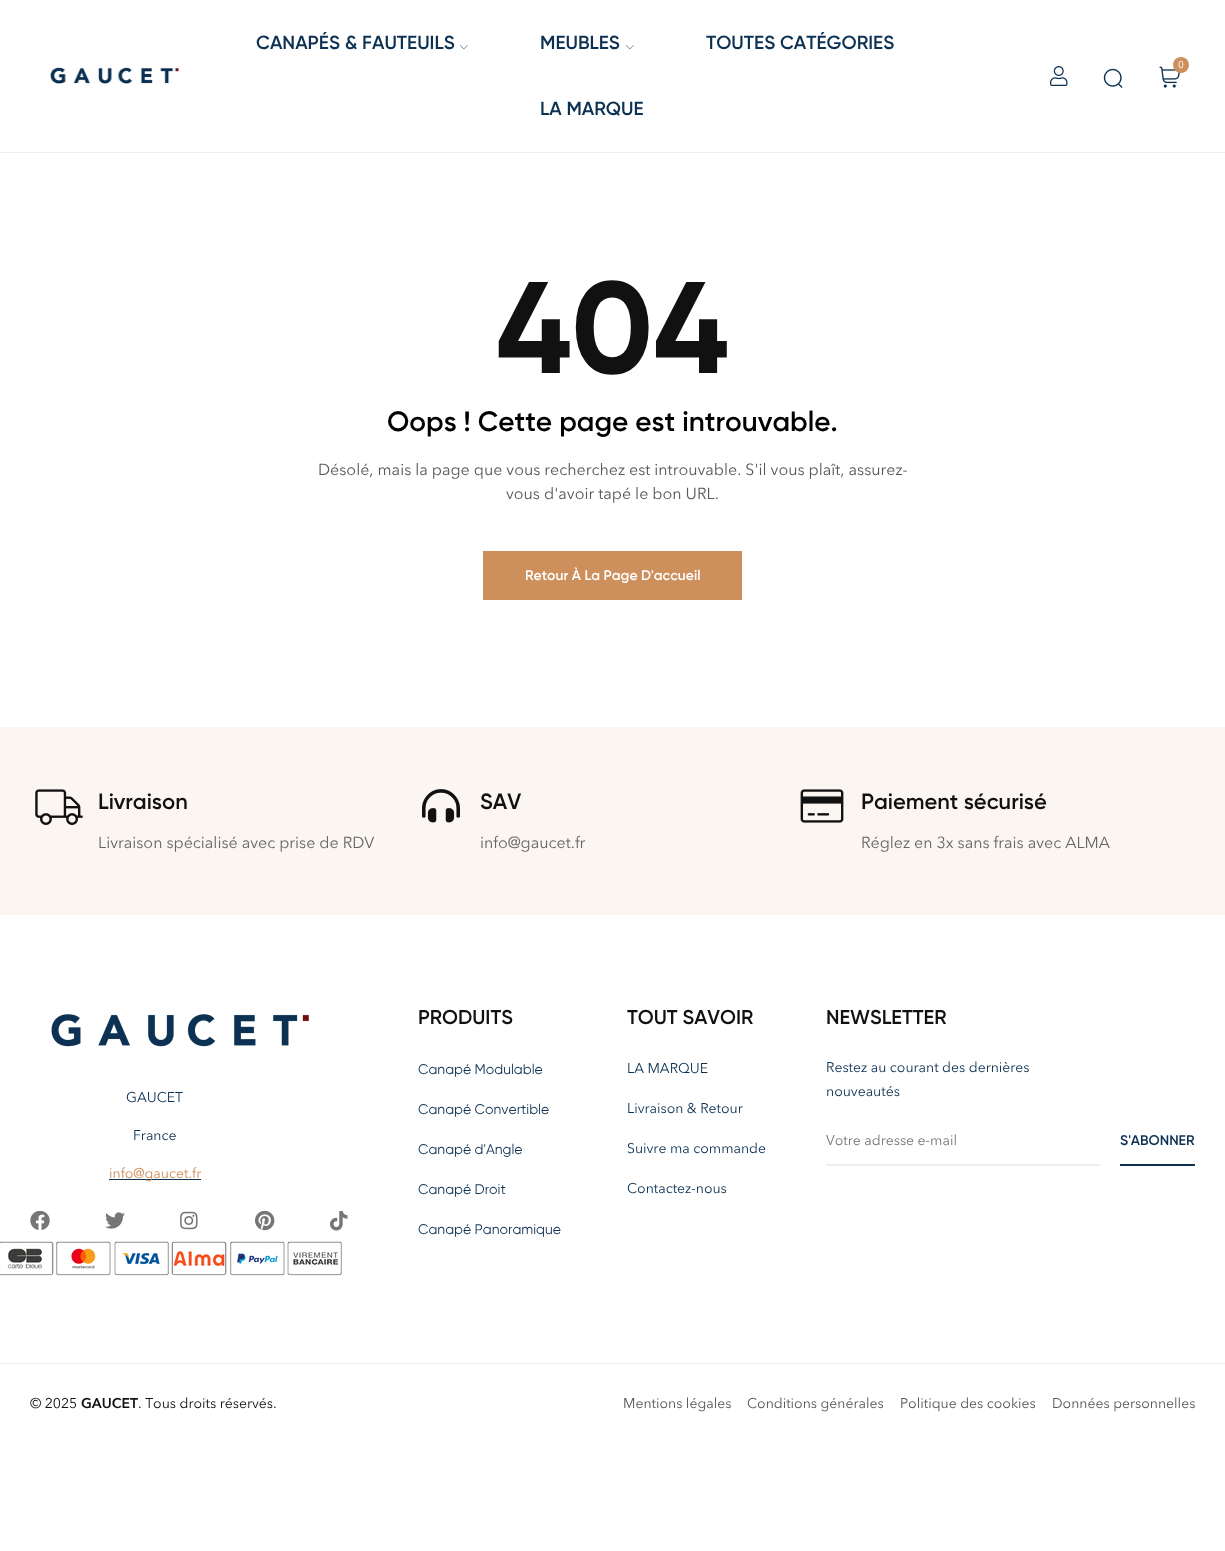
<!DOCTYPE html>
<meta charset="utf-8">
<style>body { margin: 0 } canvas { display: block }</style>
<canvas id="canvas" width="1225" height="1551"></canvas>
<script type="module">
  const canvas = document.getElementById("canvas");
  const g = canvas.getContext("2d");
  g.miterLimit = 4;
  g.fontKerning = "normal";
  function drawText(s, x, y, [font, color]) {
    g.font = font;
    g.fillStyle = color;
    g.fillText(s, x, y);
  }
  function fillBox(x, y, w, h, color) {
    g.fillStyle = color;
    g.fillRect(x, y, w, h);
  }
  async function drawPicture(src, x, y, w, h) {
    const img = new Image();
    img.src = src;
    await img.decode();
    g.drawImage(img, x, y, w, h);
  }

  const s1 = ["600 19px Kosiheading", "#0D3152"];
  const s2 = ["10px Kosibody", "#FFFFFF"];
  const s3 = ["bold 130px Kosiheading", "#111111"];
  const s4 = ["600 28px Kosiheading", "#000000"];
  const s5 = ["16px Kosibody", "#585858"];
  const s6 = ["600 14px Kosiheading", "#FFFFFF"];
  const s7 = ["600 22px Kosiheading", "#111111"];
  const s8 = ["16px Kosibody", "#666666"];
  const s9 = ["14px Kosibody", "#0D3152"];
  const s10 = ["14px Kosibody", "#CD8F5C"];
  const s11 = ["600 20px Kosiheading", "#111111"];
  const s12 = ["14px Kosiheading", "#0D3152"];
  const s13 = ["14px Kosibody", "#767676"];
  const s14 = ["600 14px Kosiheading", "#0D3152"];
  const s15 = ["14px Kosibody", "#111111"];
  const s16 = ["500 14px Kosibody", "#111111"];
  const s17 = ["14px Kosibody", "#585858"];

  fillBox(0, 0, 1225, 1551, "#FFFFFF");
  drawText("CANAPÉS & FAUTEUILS", 256, 49, s1);
  await drawPicture("pic1.png", 460, 45, 8, 5);
  drawText("MEUBLES", 540, 49, s1);
  await drawPicture("pic1.png", 626, 45, 8, 5);
  drawText("TOUTES CATÉGORIES", 706, 49, s1);
  drawText("LA MARQUE", 540, 115, s1);
  await drawPicture("pic2.png", 1159, 66, 21, 22);
  g.fillStyle = "#CD8F5C";
  g.beginPath();
  g.arc(1181, 65, 8, 0, Math.PI * 2);
  g.fill();
  drawText("0", 1178, 68, s2);
  await drawPicture("pic3.png", 1050, 66, 18, 20);
  await drawPicture("pic4.png", 1103, 68, 20, 20);
  await drawPicture("pic5.png", 50, 67, 129, 17);
  fillBox(0, 152, 1225, 1, "#EEEEEE");
  drawText("404", 496, 373, s3);
  drawText("Oops ! Cette page est introuvable.", 387, 431, s4);
  drawText("Désolé, mais la page que vous recherchez est introuvable. S'il vous plaît, assurez-", 318, 475, s5);
  drawText("vous d'avoir tapé le bon URL.", 506, 499, s5);
  fillBox(483, 551, 259, 49, "#CD8F5C");
  drawText("Retour À La Page D'accueil", 525, 580, s6);
  fillBox(0, 727, 1225, 188, "#FCF6F2");
  await drawPicture("pic6.png", 35, 789, 48, 36);
  drawText("Livraison", 98, 809, s7);
  drawText("Livraison spécialisé avec prise de RDV", 98, 848, s8);
  await drawPicture("pic7.png", 422, 789, 38, 34);
  drawText("SAV", 480, 809, s7);
  drawText("info@gaucet.fr", 480, 848, s8);
  await drawPicture("pic8.png", 800, 789, 44, 34);
  drawText("Paiement sécurisé", 861, 809, s7);
  drawText("Réglez en 3x sans frais avec ALMA", 861, 848, s8);
  fillBox(0, 1363, 1225, 1, "#EEEEEE");
  await drawPicture("pic9.png", 51, 1014, 258, 33);
  drawText("GAUCET", 126, 1102, s9);
  drawText("France", 133, 1140, s9);
  fillBox(109, 1179, 92, 1, "#0D3152");
  drawText("info@gaucet.fr", 109, 1178, s10);
  await drawPicture("pic10.png", 30, 1211, 20, 19);
  await drawPicture("pic11.png", 105, 1212, 20, 17);
  await drawPicture("pic12.png", 180, 1211, 18, 19);
  await drawPicture("pic13.png", 255, 1211, 20, 20);
  await drawPicture("pic14.png", 330, 1211, 18, 20);
  await drawPicture("pic15.png", 0, 1241, 342, 35);
  drawText("PRODUITS", 418, 1024, s11);
  drawText("Canapé Modulable", 418, 1074, s12);
  drawText("Canapé Convertible", 418, 1114, s12);
  drawText("Canapé d'Angle", 418, 1154, s12);
  drawText("Canapé Droit", 418, 1194, s12);
  drawText("Canapé Panoramique", 418, 1234, s12);
  drawText("TOUT SAVOIR", 627, 1024, s11);
  drawText("LA MARQUE", 627, 1073, s9);
  drawText("Livraison & Retour", 627, 1113, s9);
  drawText("Suivre ma commande", 627, 1153, s9);
  drawText("Contactez-nous", 627, 1193, s9);
  drawText("NEWSLETTER", 826, 1024, s11);
  drawText("Restez au courant des dernières", 826, 1072, s9);
  drawText("nouveautés", 826, 1096, s9);
  fillBox(826, 1164, 274, 2, "#EEEEEE");
  drawText("Votre adresse e-mail", 826, 1145, s13);
  fillBox(1120, 1164, 75, 2, "#0D3152");
  drawText("S'ABONNER", 1120, 1145, s14);
  drawText("© 2025", 30, 1408, s15);
  drawText("GAUCET", 81, 1408, s16);
  drawText(". Tous droits réservés.", 138, 1408, s15);
  drawText("Mentions légales", 623, 1408, s17);
  drawText("Conditions générales", 747, 1408, s17);
  drawText("Politique des cookies", 900, 1408, s17);
  drawText("Données personnelles", 1052, 1408, s17);
</script>
